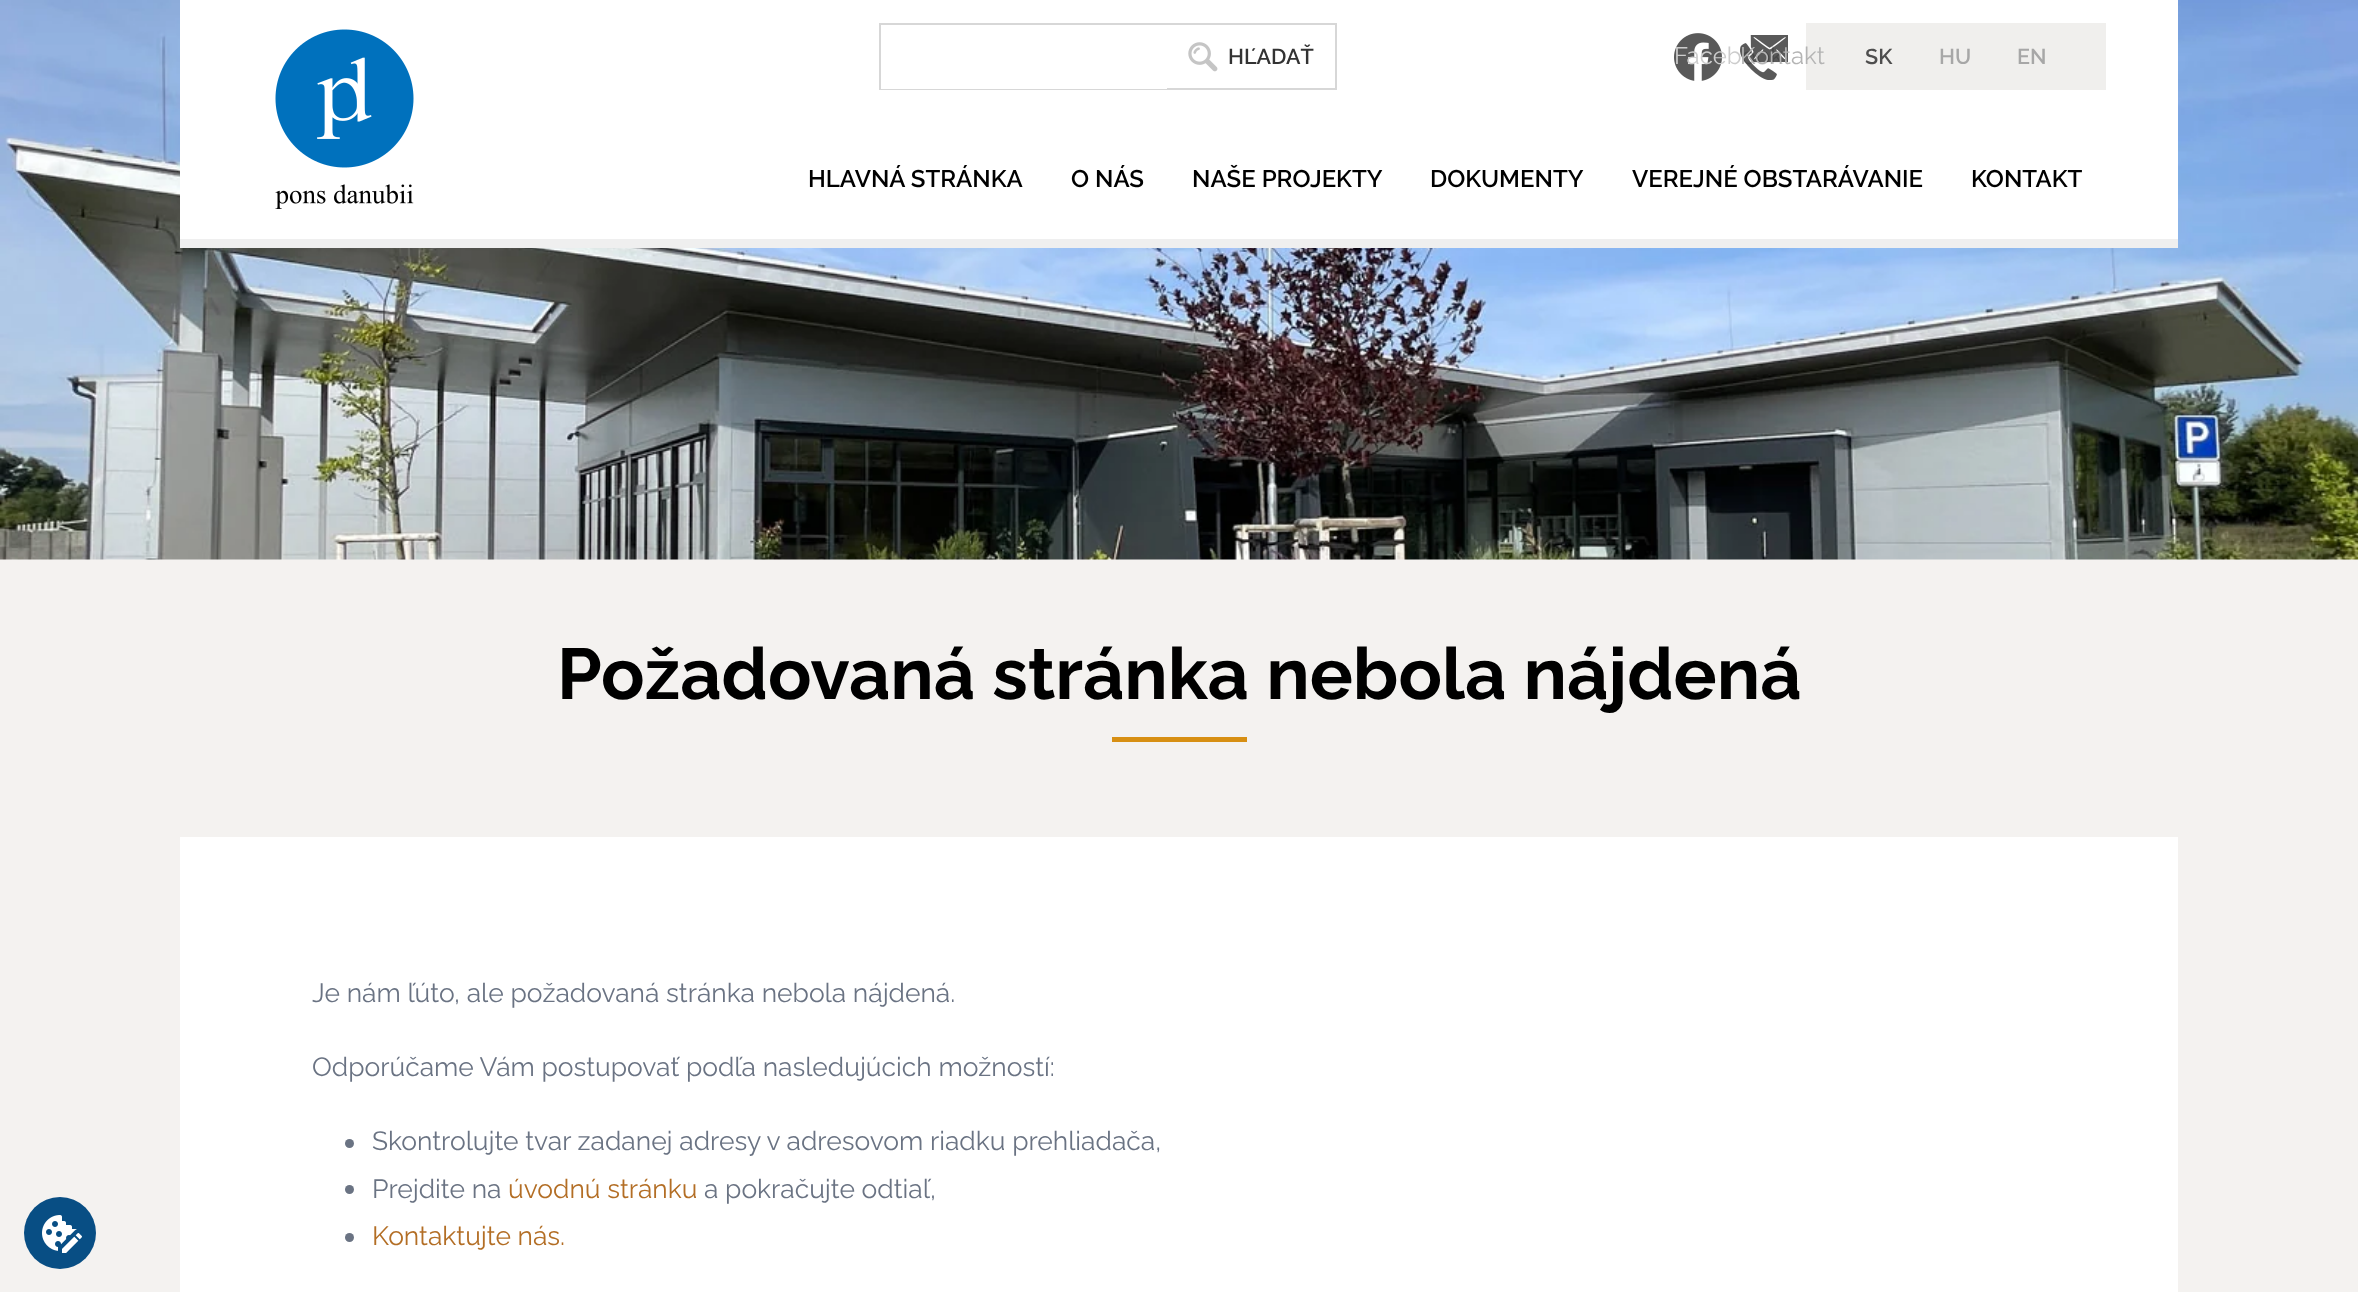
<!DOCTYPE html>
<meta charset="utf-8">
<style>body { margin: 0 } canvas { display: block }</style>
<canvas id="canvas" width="2358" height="1292"></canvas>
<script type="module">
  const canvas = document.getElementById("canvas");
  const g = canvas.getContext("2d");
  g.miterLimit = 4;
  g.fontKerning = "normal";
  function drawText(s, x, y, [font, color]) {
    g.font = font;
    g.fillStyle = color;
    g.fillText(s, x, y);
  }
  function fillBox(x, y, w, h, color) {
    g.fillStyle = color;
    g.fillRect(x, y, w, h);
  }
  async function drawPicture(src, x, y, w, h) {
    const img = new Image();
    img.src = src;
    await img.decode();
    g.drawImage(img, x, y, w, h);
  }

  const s1 = ["600 21.5px Raleway", "#333333"];
  const s2 = ["24px Raleway", "#CCCCCC"];
  const s3 = ["24px Raleway", "#B4B4B4"];
  const s4 = ["600 21.5px Raleway", "#4E4E4E"];
  const s5 = ["600 21.5px Raleway", "#A7A7A7"];
  const s6 = ["600 24px Raleway", "#000000"];
  const s7 = ["bold 72px Raleway", "#000000"];
  const s8 = ["26.4px Raleway", "#6A7383"];
  const s9 = ["26.4px Raleway", "#B36E25"];

  fillBox(0, 0, 2358, 1292, "#F4F2F0");
  g.fillStyle = "#084E84";
  g.beginPath();
  g.arc(60, 1233, 36, 0, Math.PI * 2);
  g.fill();
  await drawPicture("pic1.png", 42, 1215, 40, 38);
  await drawPicture("pic2.png", 0, 0, 2358, 560);
  fillBox(180, 0, 1998, 239, "#FFFFFF");
  fillBox(180, 239, 1998, 9, "#EFEFEF");
  await drawPicture("pic3.png", 275, 29, 139, 180);
  g.strokeStyle = "#D7D7D7";
  g.lineWidth = 2;
  g.strokeRect(880, 24, 456, 65);
  await drawPicture("pic4.png", 1188, 42, 30, 30);
  drawText("HĽADAŤ", 1228, 64, s1);
  fillBox(881, 88, 286, 1, "#FFFFFF");
  await drawPicture("pic5.png", 1674, 33, 48, 48);
  drawText("Facebook", 1674, 64, s2);
  await drawPicture("pic6.png", 1740, 35, 48, 45);
  fillBox(1806, 23, 300, 67, "#F0EFED");
  drawText("Kontakt", 1740, 64, s3);
  drawText("SK", 1865, 64, s4);
  drawText("HU", 1939, 64, s5);
  drawText("EN", 2017, 64, s5);
  drawText("HLAVNÁ STRÁNKA", 808, 187, s6);
  drawText("O NÁS", 1071, 187, s6);
  drawText("NAŠE PROJEKTY", 1192, 187, s6);
  drawText("DOKUMENTY", 1430, 187, s6);
  drawText("VEREJNÉ OBSTARÁVANIE", 1632, 187, s6);
  drawText("KONTAKT", 1971, 187, s6);
  drawText("Požadovaná stránka nebola nájdená", 557, 699, s7);
  fillBox(1112, 737, 135, 5, "#D78F13");
  fillBox(180, 837, 1998, 455, "#FFFFFF");
  drawText("Je nám ľúto, ale požadovaná stránka nebola nájdená.", 312, 1002, s8);
  drawText("Odporúčame Vám postupovať podľa nasledujúcich možností:", 312, 1076, s8);
  g.beginPath();
  g.arc(349.5, 1143.5, 4.5, 0, Math.PI * 2);
  g.fill();
  drawText("Skontrolujte tvar zadanej adresy v adresovom riadku prehliadača,", 372, 1150, s8);
  g.beginPath();
  g.arc(349.5, 1189.5, 4.5, 0, Math.PI * 2);
  g.fill();
  drawText("Prejdite na", 372, 1198, s8);
  drawText("úvodnú stránku", 508, 1198, s9);
  drawText("a pokračujte odtiaľ,", 704, 1198, s8);
  g.beginPath();
  g.arc(349.5, 1237.5, 4.5, 0, Math.PI * 2);
  g.fill();
  drawText("Kontaktujte nás.", 372, 1245, s9);
</script>
